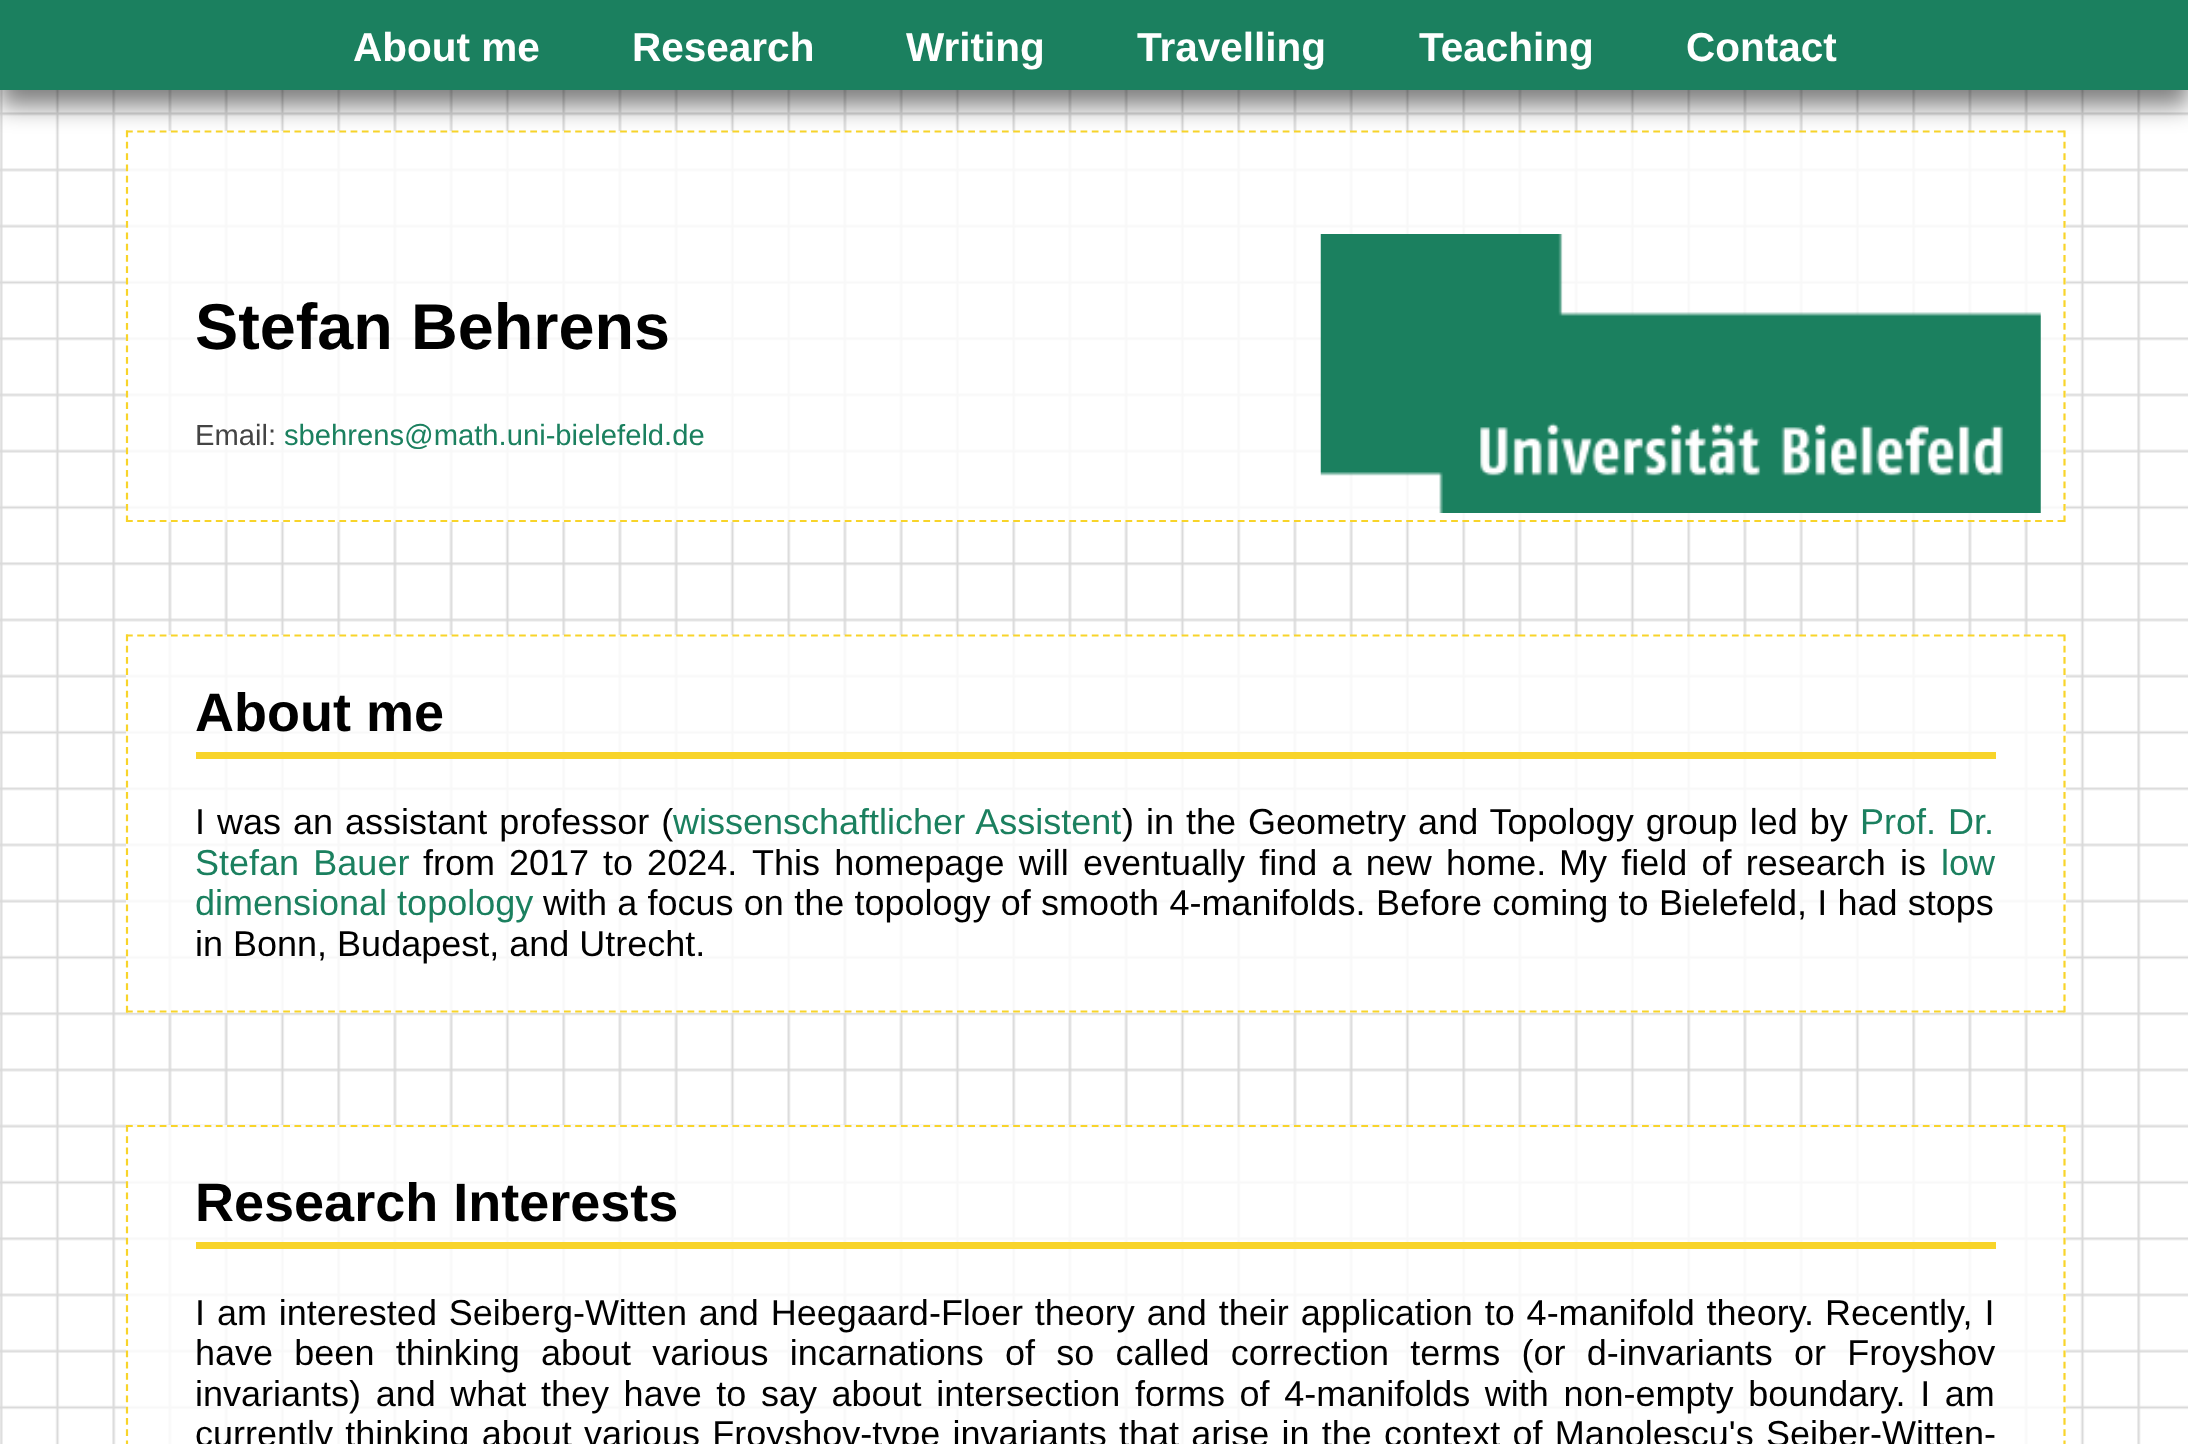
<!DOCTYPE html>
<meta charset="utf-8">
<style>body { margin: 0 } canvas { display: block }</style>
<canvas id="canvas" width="2188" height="1444"></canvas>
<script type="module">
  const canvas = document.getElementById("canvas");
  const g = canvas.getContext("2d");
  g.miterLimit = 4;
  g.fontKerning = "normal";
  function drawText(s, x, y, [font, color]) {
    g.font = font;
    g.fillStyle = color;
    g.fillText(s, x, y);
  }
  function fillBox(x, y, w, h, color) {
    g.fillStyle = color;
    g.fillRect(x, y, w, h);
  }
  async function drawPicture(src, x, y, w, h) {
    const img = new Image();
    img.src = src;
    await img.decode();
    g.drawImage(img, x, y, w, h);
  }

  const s1 = ["bold 40.5px Liberation Sans", "#FFFFFF"];
  const s2 = ["bold 64.75px Liberation Sans", "#000000"];
  const s3 = ["29.2px Liberation Sans", "#444444"];
  const s4 = ["29.2px Liberation Sans", "#1B805F"];
  const s5 = ["bold 54px Liberation Sans", "#000000"];
  const s6 = ["36px Liberation Sans", "#000000"];
  const s7 = ["36px Liberation Sans", "#1B805F"];

  fillBox(0, 0, 2188, 1444, "#FFFFFF");
  await drawPicture("pic1.png", 0, 90, 2188, 1354);
  fillBox(126, 131, 1940, 391, "rgba(255, 255, 255, 0.8)");
  g.beginPath();
  g.moveTo(126, 131.5);
  g.lineTo(2065.5, 131.5);
  g.strokeStyle = "#F8D42A";
  g.lineWidth = 2.2;
  g.setLineDash([6.75, 4.48]);
  g.stroke();
  g.beginPath();
  g.moveTo(2064.5, 130.5);
  g.lineTo(2064.5, 522);
  g.setLineDash([6.75, 4.57]);
  g.stroke();
  g.beginPath();
  g.moveTo(126, 521);
  g.lineTo(2065.5, 521);
  g.setLineDash([6.75, 4.48]);
  g.stroke();
  g.beginPath();
  g.moveTo(127, 130.5);
  g.lineTo(127, 522);
  g.setLineDash([6.75, 4.57]);
  g.stroke();
  g.fillStyle = "rgba(0, 0, 0, 0.5)";
  g.filter = "blur(12.5px)";
  g.beginPath();
  g.rect(0, 16, 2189, 90);
  g.fill();
  g.filter = "none";
  fillBox(0, 0, 2188, 90, "#1B805F");
  drawText("About me", 353, 61, s1);
  drawText("Research", 632, 61, s1);
  drawText("Writing", 906, 61, s1);
  drawText("Travelling", 1137, 61, s1);
  drawText("Teaching", 1419, 61, s1);
  drawText("Contact", 1686, 61, s1);
  drawText("Stefan Behrens", 195, 349, s2);
  await drawPicture("pic2.png", 1320, 234, 721, 279);
  drawText("Email:", 195, 445, s3);
  drawText("sbehrens@math.uni-bielefeld.de", 284, 445, s4);
  fillBox(126, 635, 1940, 378, "rgba(255, 255, 255, 0.8)");
  g.beginPath();
  g.moveTo(126, 635.5);
  g.lineTo(2065.5, 635.5);
  g.setLineDash([6.75, 4.48]);
  g.stroke();
  g.beginPath();
  g.moveTo(2064.5, 634.5);
  g.lineTo(2064.5, 1012.5);
  g.setLineDash([6.75, 4.5]);
  g.stroke();
  g.beginPath();
  g.moveTo(126, 1011.5);
  g.lineTo(2065.5, 1011.5);
  g.setLineDash([6.75, 4.48]);
  g.stroke();
  g.beginPath();
  g.moveTo(127, 634.5);
  g.lineTo(127, 1012.5);
  g.setLineDash([6.75, 4.5]);
  g.stroke();
  fillBox(196, 752, 1800, 7, "#F8D42A");
  drawText("About me", 195, 731, s5);
  g.wordSpacing = "2px";
  drawText("I was an assistant professor (", 195, 834, s6);
  drawText("wissenschaftlicher Assistent", 673, 834, s7);
  drawText(") in the Geometry and Topology group led by", 1122, 834, s6);
  drawText("Prof. Dr.", 1860, 834, s7);
  g.wordSpacing = "4.25px";
  drawText("Stefan Bauer", 195, 875, s7);
  g.wordSpacing = "4px";
  drawText("from 2017 to 2024.", 423, 875, s6);
  g.wordSpacing = "4.25px";
  drawText("This homepage will eventually find a new home.", 752, 875, s6);
  drawText("My field of research is", 1559, 875, s6);
  g.wordSpacing = "0px";
  drawText("low", 1941, 875, s7);
  drawText("dimensional topology", 195, 915, s7);
  g.wordSpacing = "0.25px";
  drawText("with a focus on the topology of smooth 4-manifolds.", 543, 915, s6);
  drawText("Before coming to Bielefeld, I had stops", 1376, 915, s6);
  g.wordSpacing = "0px";
  drawText("in Bonn, Budapest, and Utrecht.", 195, 956, s6);
  fillBox(126, 1125, 1940, 319, "rgba(255, 255, 255, 0.8)");
  g.beginPath();
  g.moveTo(126, 1126);
  g.lineTo(2065.5, 1126);
  g.setLineDash([6.75, 4.48]);
  g.stroke();
  g.beginPath();
  g.moveTo(2064.5, 1125);
  g.lineTo(2064.5, 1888);
  g.setLineDash([6.75, 4.52]);
  g.stroke();
  g.beginPath();
  g.moveTo(127, 1125);
  g.lineTo(127, 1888);
  g.stroke();
  fillBox(196, 1242, 1800, 7, "#F8D42A");
  drawText("Research Interests", 195, 1221, s5);
  g.wordSpacing = "1.9px";
  drawText("I am interested Seiberg-Witten and Heegaard-Floer theory and their application to 4-manifold theory.", 195, 1325, s6);
  g.wordSpacing = "2px";
  drawText("Recently, I", 1825, 1325, s6);
  g.wordSpacing = "11.25px";
  drawText("have been thinking about various incarnations of so called correction terms (or d-invariants or Froyshov", 195, 1365, s6);
  g.wordSpacing = "4.6px";
  drawText("invariants) and what they have to say about intersection forms of 4-manifolds with non-empty boundary. I am", 195, 1406, s6);
  g.wordSpacing = "2.25px";
  drawText("currently thinking about various Froyshov-type invariants that arise in the context of Manolescu's Seiber-Witten-", 195, 1446, s6);
</script>
